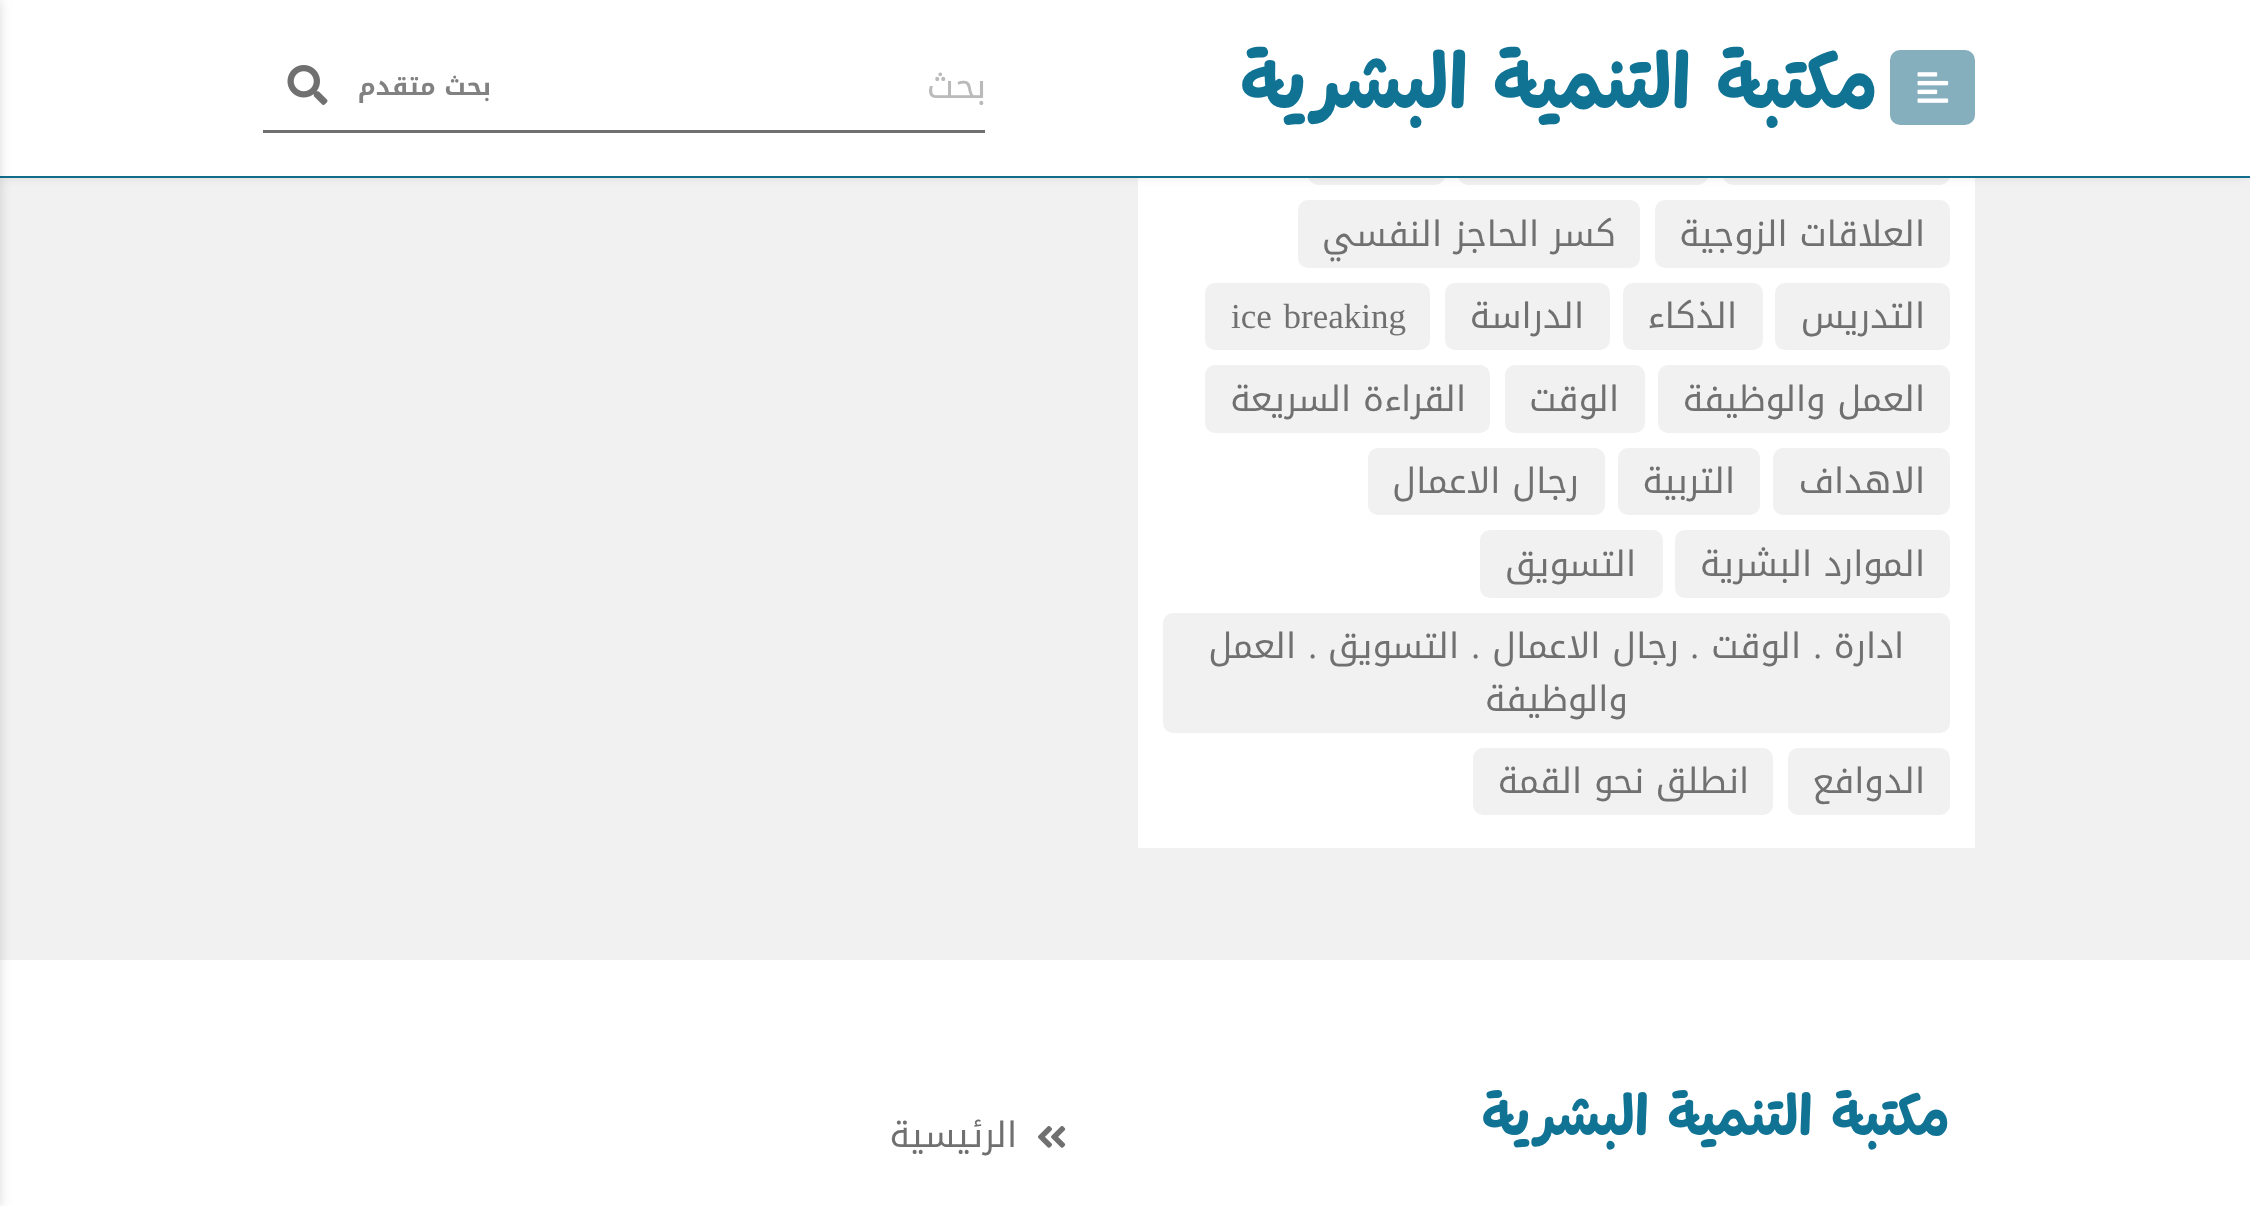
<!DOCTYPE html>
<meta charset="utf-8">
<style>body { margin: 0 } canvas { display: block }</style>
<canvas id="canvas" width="2250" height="1206"></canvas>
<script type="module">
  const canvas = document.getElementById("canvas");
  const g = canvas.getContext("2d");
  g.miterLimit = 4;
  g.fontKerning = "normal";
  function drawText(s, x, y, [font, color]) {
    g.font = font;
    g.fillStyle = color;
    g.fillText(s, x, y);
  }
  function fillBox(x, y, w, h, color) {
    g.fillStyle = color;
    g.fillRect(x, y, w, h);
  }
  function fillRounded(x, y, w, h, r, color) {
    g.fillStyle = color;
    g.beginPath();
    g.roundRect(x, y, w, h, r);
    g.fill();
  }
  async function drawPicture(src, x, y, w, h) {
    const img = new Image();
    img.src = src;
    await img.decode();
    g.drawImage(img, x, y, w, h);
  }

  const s1 = ["bold 75px Playpen Sans Arabic", "#117394"];
  const s2 = ["35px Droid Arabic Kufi", "#BABABA"];
  const s3 = ["bold 25px Droid Arabic Kufi", "#818181"];
  const s4 = ["35px Droid Arabic Kufi", "#707070"];
  const s5 = ["35px Liberation Serif", "#707070"];
  const s6 = ["bold 55px Playpen Sans Arabic", "#117394"];

  fillBox(0, 0, 2250, 1206, "#F1F1F1");
  fillBox(1138, 178, 837, 670, "#FFFFFF");
  fillRounded(1723, 118, 227, 67, 10, "#F1F1F1");
  fillRounded(1458, 118, 250, 67, 10, "#F1F1F1");
  fillRounded(1308, 118, 137, 67, 10, "#F1F1F1");
  fillBox(0, 176, 2250, 2, "#117394");
  g.fillStyle = "rgba(0, 0, 0, 0.15)";
  g.filter = "blur(6px)";
  g.beginPath();
  g.rect(0, 0, 2250, 175);
  g.fill();
  g.filter = "none";
  fillBox(0, 0, 2250, 176, "#FFFFFF");
  fillRounded(1890, 50, 85, 75, 10, "#86AFBD");
  await drawPicture("pic1.png", 1917, 72, 32, 31);
  g.wordSpacing = "1px";
  g.direction = "rtl";
  drawText("مكتبة التنمية البشرية", 1878, 108, s1);
  fillBox(263, 130, 722, 3, "#707070");
  g.wordSpacing = "0px";
  drawText("بحث", 986, 98, s2);
  drawText("بحث متقدم", 491, 95, s3);
  await drawPicture("pic2.png", 287, 65, 41, 40);
  fillBox(0, 960, 2250, 246, "#FFFFFF");
  g.fillStyle = "rgba(0, 0, 0, 0.15)";
  g.filter = "blur(6px)";
  g.beginPath();
  g.rect(-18, 0, 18, 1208);
  g.fill();
  g.filter = "none";
  fillRounded(1655, 200, 295, 68, 10, "#F1F1F1");
  drawText("العلاقات الزوجية", 1925, 246, s4);
  fillRounded(1298, 200, 342, 68, 10, "#F1F1F1");
  drawText("كسر الحاجز النفسي", 1616, 246, s4);
  fillRounded(1775, 283, 175, 67, 10, "#F1F1F1");
  drawText("التدريس", 1925, 328, s4);
  fillRounded(1623, 283, 140, 67, 10, "#F1F1F1");
  drawText("الذكاء", 1737, 328, s4);
  fillRounded(1445, 283, 165, 67, 10, "#F1F1F1");
  drawText("الدراسة", 1584, 328, s4);
  fillRounded(1205, 283, 225, 67, 10, "#F1F1F1");
  g.wordSpacing = "3px";
  g.direction = "ltr";
  drawText("ice breaking", 1231, 328, s5);
  fillRounded(1658, 365, 292, 68, 10, "#F1F1F1");
  g.wordSpacing = "0px";
  g.direction = "rtl";
  drawText("العمل والوظيفة", 1925, 411, s4);
  fillRounded(1505, 365, 140, 68, 10, "#F1F1F1");
  drawText("الوقت", 1619, 411, s4);
  fillRounded(1205, 365, 285, 68, 10, "#F1F1F1");
  drawText("القراءة السريعة", 1466, 411, s4);
  fillRounded(1773, 448, 177, 67, 10, "#F1F1F1");
  drawText("الاهداف", 1925, 493, s4);
  fillRounded(1618, 448, 142, 67, 10, "#F1F1F1");
  drawText("التربية", 1735, 493, s4);
  fillRounded(1368, 448, 237, 67, 10, "#F1F1F1");
  drawText("رجال الاعمال", 1579, 493, s4);
  fillRounded(1675, 530, 275, 68, 10, "#F1F1F1");
  drawText("الموارد البشرية", 1925, 576, s4);
  fillRounded(1480, 530, 183, 68, 10, "#F1F1F1");
  drawText("التسويق", 1636, 576, s4);
  fillRounded(1163, 613, 787, 120, 10, "#F1F1F1");
  drawText("ادارة", 1904, 658, s4);
  drawText(".", 1822, 658, s5);
  drawText("الوقت", 1801, 658, s4);
  drawText(".", 1699, 658, s5);
  drawText("رجال الاعمال", 1679, 658, s4);
  drawText(".", 1480, 658, s5);
  drawText("التسويق", 1459, 658, s4);
  drawText(".", 1317, 658, s5);
  drawText("العمل", 1296, 658, s4);
  drawText("والوظيفة", 1628, 711, s4);
  fillRounded(1788, 748, 162, 67, 10, "#F1F1F1");
  drawText("الدوافع", 1925, 793, s4);
  fillRounded(1473, 748, 300, 67, 10, "#F1F1F1");
  drawText("انطلق نحو القمة", 1749, 793, s4);
  g.wordSpacing = "1px";
  drawText("مكتبة التنمية البشرية", 1950, 1135, s6);
  await drawPicture("pic3.png", 1038, 1126, 28, 22);
  g.wordSpacing = "0px";
  drawText("الرئيسية", 1017, 1147, s4);
</script>
